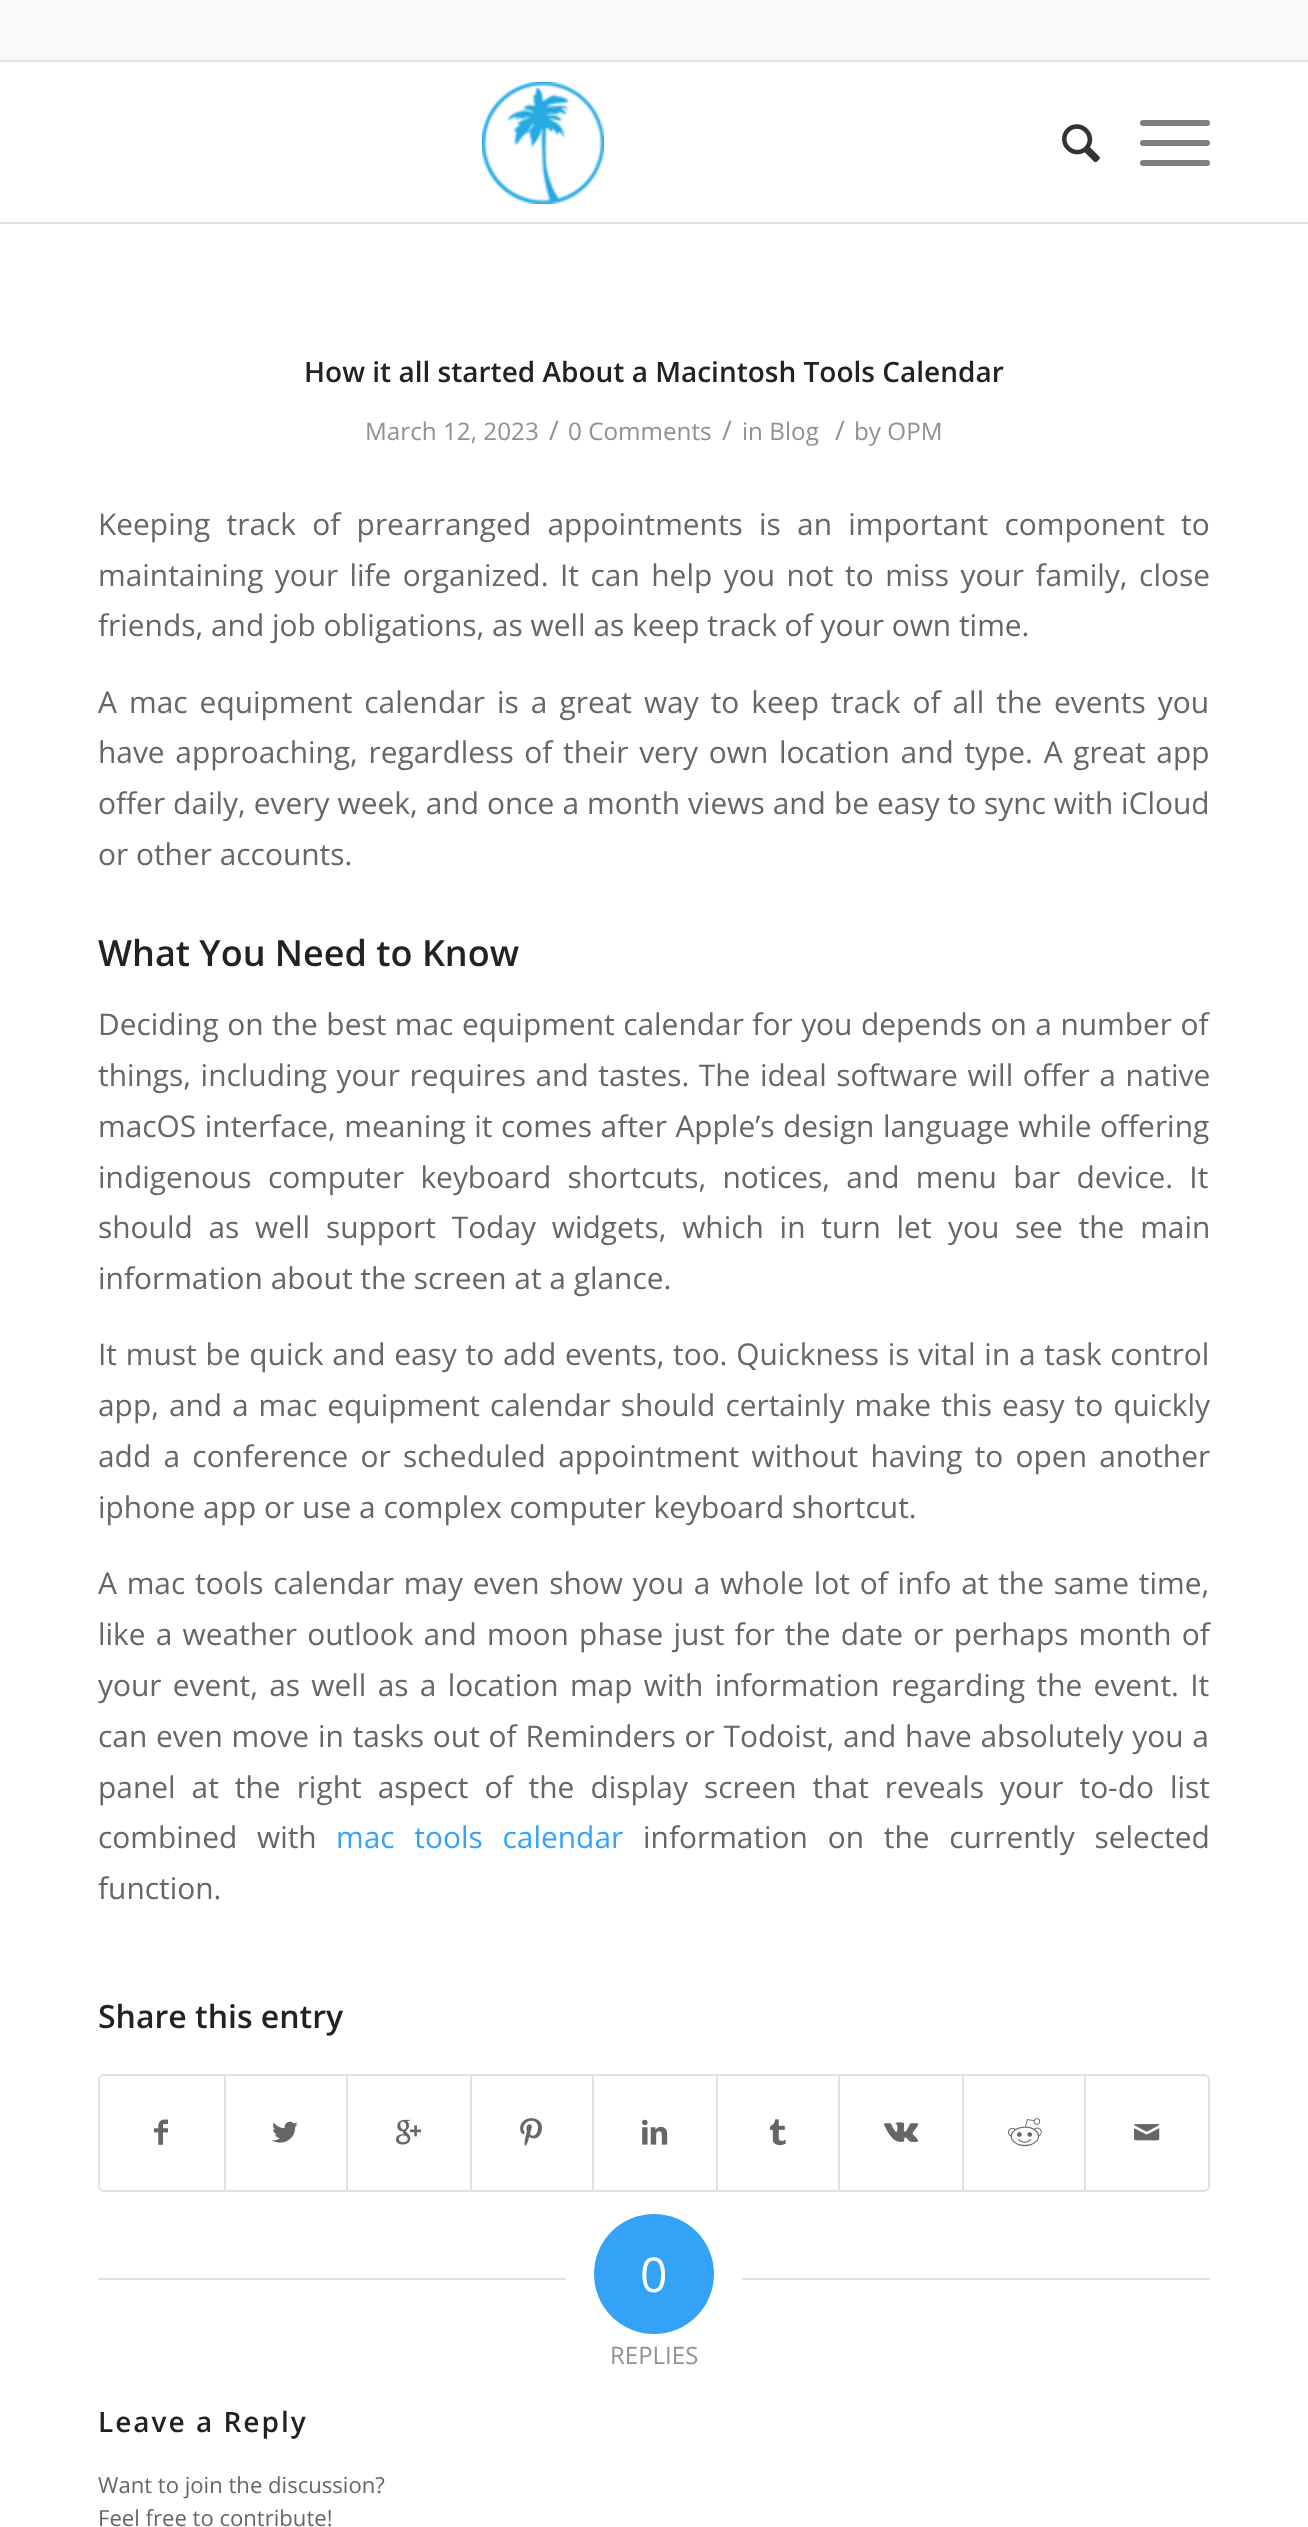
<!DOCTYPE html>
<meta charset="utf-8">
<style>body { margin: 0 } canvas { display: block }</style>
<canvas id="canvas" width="1308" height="2527"></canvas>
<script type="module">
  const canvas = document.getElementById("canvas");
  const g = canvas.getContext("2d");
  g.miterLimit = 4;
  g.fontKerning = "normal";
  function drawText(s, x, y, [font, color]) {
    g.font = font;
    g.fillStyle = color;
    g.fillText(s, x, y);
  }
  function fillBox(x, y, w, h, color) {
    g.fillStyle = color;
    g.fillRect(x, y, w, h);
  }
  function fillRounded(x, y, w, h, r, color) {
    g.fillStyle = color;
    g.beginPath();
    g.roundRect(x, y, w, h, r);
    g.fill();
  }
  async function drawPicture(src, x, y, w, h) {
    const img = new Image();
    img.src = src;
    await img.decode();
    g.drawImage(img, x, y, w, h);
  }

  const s1 = ["600 28px Open Sans", "#222222"];
  const s2 = ["24.25px Open Sans", "#919191"];
  const s3 = ["27px Open Sans", "#919191"];
  const s4 = ["29.9px Open Sans", "#666666"];
  const s5 = ["600 36px Open Sans", "#222222"];
  const s6 = ["29.9px Open Sans", "#34A3F7"];
  const s7 = ["600 32px Open Sans", "#222222"];
  const s8 = ["48px Open Sans", "#FFFFFF"];
  const s9 = ["24px Open Sans", "#919191"];
  const s10 = ["22.1px Open Sans", "#666666"];

  fillBox(0, 0, 1308, 2527, "#FFFFFF");
  fillBox(0, 0, 1308, 60, "#F8F8F8");
  fillBox(0, 60, 1308, 2, "#E1E1E1");
  fillBox(0, 222, 1308, 2, "#E1E1E1");
  await drawPicture("pic1.png", 482, 82, 122, 122);
  await drawPicture("pic2.png", 1062, 124, 38, 39);
  fillRounded(1140, 140, 70, 6, 3, "#808080");
  fillRounded(1140, 120, 70, 6, 3, "#808080");
  fillRounded(1140, 160, 70, 6, 3, "#808080");
  drawText("How it all started About a Macintosh Tools Calendar", 304, 382, s1);
  drawText("March 12, 2023", 365, 440, s2);
  drawText("/", 549, 440, s3);
  drawText("0 Comments", 568, 440, s2);
  drawText("/", 722, 440, s3);
  drawText("in Blog", 742, 440, s2);
  drawText("/", 835, 440, s3);
  drawText("by OPM", 854, 440, s2);
  g.wordSpacing = "8.5px";
  drawText("Keeping track of prearranged appointments", 98, 535, s4);
  drawText("is an important component to", 759, 535, s4);
  g.wordSpacing = "3.5px";
  drawText("maintaining your life organized.", 98, 586, s4);
  g.wordSpacing = "3.75px";
  drawText("It can help you not to miss your family, close", 560, 586, s4);
  g.wordSpacing = "0px";
  drawText("friends, and job obligations, as well as keep track of your own time.", 98, 636, s4);
  drawText("A", 98, 713, s4);
  g.wordSpacing = "4.25px";
  drawText("mac equipment calendar is a great way to keep track of all the events you", 129, 713, s4);
  g.wordSpacing = "2.9px";
  drawText("have approaching, regardless of their very own location and type. A great app", 98, 763, s4);
  g.wordSpacing = "0.25px";
  drawText("offer daily, every week, and once a month views and be easy to", 98, 814, s4);
  g.wordSpacing = "0px";
  drawText("sync with iCloud", 984, 814, s4);
  drawText("or other accounts.", 98, 865, s4);
  drawText("What You Need to Know", 98, 966, s5);
  g.wordSpacing = "0.75px";
  drawText("Deciding on the best mac equipment calendar for you depends on a number of", 98, 1035, s4);
  g.wordSpacing = "1.75px";
  drawText("things, including your requires and tastes. The ideal software will offer a native", 98, 1086, s4);
  g.wordSpacing = "0.75px";
  drawText("macOS interface, meaning it comes after Apple’s design language while offering", 98, 1137, s4);
  g.wordSpacing = "8.5px";
  drawText("indigenous computer keyboard shortcuts, notices, and menu bar device. It", 98, 1188, s4);
  g.wordSpacing = "8px";
  drawText("should as well support Today widgets, which in turn let", 98, 1238, s4);
  drawText("you see the main", 948, 1238, s4);
  g.wordSpacing = "0px";
  drawText("information about the screen at a glance.", 98, 1289, s4);
  g.wordSpacing = "1px";
  drawText("It must be quick and easy to add events,", 98, 1365, s4);
  drawText("too. Quickness is vital in a task control", 673, 1365, s4);
  g.wordSpacing = "2.25px";
  drawText("app, and", 98, 1416, s4);
  drawText("a mac equipment calendar should certainly make this easy to quickly", 232, 1416, s4);
  g.wordSpacing = "4.5px";
  drawText("add a conference or scheduled appointment without having to open another", 98, 1467, s4);
  g.wordSpacing = "0px";
  drawText("iphone app or use a complex computer keyboard shortcut.", 98, 1518, s4);
  g.wordSpacing = "2px";
  drawText("A mac tools calendar may even show you a whole lot of info at the same time,", 98, 1594, s4);
  g.wordSpacing = "2.4px";
  drawText("like a weather outlook and moon phase just for the date or perhaps month of", 98, 1645, s4);
  g.wordSpacing = "3.5px";
  drawText("your event, as well as a location map with information regarding the event. It", 98, 1696, s4);
  g.wordSpacing = "1px";
  drawText("can even move", 98, 1747, s4);
  drawText("in tasks out of Reminders or Todoist, and have absolutely you a", 318, 1747, s4);
  g.wordSpacing = "8.25px";
  drawText("panel at the right aspect of the display screen that reveals your to-do list", 98, 1798, s4);
  g.wordSpacing = "12px";
  drawText("combined with", 98, 1848, s4);
  drawText("mac tools calendar", 336, 1848, s6);
  drawText("information on the currently selected", 643, 1848, s4);
  g.wordSpacing = "0px";
  drawText("function.", 98, 1899, s4);
  drawText("Share this entry", 98, 2028, s7);
  g.beginPath();
  g.roundRect(99, 2075, 1110, 116, 5);
  g.strokeStyle = "#E1E1E1";
  g.lineWidth = 2;
  g.stroke();
  await drawPicture("pic3.png", 154, 2119, 14, 26);
  fillBox(224, 2076, 2, 114, "#E1E1E1");
  await drawPicture("pic4.png", 272, 2121, 26, 22);
  fillBox(346, 2076, 2, 114, "#E1E1E1");
  await drawPicture("pic5.png", 396, 2119, 26, 26);
  fillBox(470, 2076, 2, 114, "#E1E1E1");
  await drawPicture("pic6.png", 520, 2118, 22, 28);
  fillBox(592, 2076, 2, 114, "#E1E1E1");
  await drawPicture("pic7.png", 642, 2119, 26, 26);
  fillBox(716, 2076, 2, 114, "#E1E1E1");
  await drawPicture("pic8.png", 770, 2119, 16, 27);
  fillBox(838, 2076, 2, 114, "#E1E1E1");
  await drawPicture("pic9.png", 884, 2122, 35, 20);
  fillBox(962, 2076, 2, 114, "#E1E1E1");
  await drawPicture("pic10.png", 1008, 2118, 34, 29);
  fillBox(1084, 2076, 2, 114, "#E1E1E1");
  await drawPicture("pic11.png", 1134, 2124, 26, 17);
  fillBox(98, 2278, 468, 2, "#E1E1E1");
  g.fillStyle = "#34A3F7";
  g.beginPath();
  g.arc(654, 2274, 60, 0, Math.PI * 2);
  g.fill();
  drawText("0", 640, 2292, s8);
  fillBox(742, 2278, 468, 2, "#E1E1E1");
  drawText("REPLIES", 610, 2364, s9);
  g.letterSpacing = "2px";
  drawText("Leave a Reply", 98, 2432, s1);
  g.letterSpacing = "0px";
  drawText("Want to join the discussion?", 98, 2493, s10);
  drawText("Feel free to contribute!", 98, 2526, s10);
</script>
